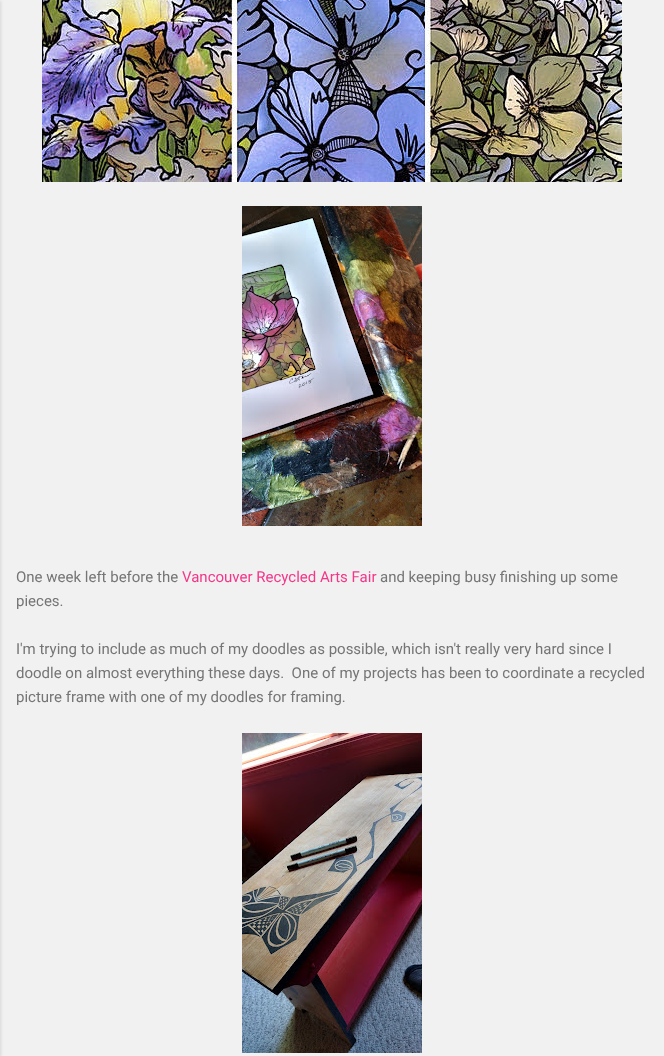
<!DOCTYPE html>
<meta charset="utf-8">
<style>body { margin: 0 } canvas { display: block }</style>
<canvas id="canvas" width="664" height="1056"></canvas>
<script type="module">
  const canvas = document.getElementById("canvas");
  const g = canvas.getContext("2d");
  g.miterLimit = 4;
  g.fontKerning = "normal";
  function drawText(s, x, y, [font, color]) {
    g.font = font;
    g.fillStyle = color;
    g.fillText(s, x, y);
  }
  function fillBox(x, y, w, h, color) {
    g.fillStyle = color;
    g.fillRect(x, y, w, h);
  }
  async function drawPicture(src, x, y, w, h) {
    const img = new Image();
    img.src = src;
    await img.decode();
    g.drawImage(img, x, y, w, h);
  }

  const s1 = ["15px Roboto", "#757575"];
  const s2 = ["15px Roboto", "#F43689"];

  fillBox(0, 0, 664, 1056, "#F1F1F1");
  g.fillStyle = "rgba(0, 0, 0, 0.1)";
  g.filter = "blur(1.5px)";
  g.beginPath();
  g.rect(-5, 1, 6, 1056);
  g.fill();
  g.filter = "none";
  await drawPicture("pic1.png", 42, 0, 580, 182);
  await drawPicture("pic2.png", 242, 206, 180, 320);
  drawText("One week left before the", 16, 582, s1);
  drawText("Vancouver Recycled Arts Fair", 182, 582, s2);
  drawText("and keeping busy finishing up some", 380, 582, s1);
  drawText("pieces.", 16, 606, s1);
  drawText("I'm trying to include as much of my doodles as possible, which isn't really very hard since I", 16, 654, s1);
  drawText("doodle on almost everything these days.  One of my projects has been to coordinate a recycled", 16, 678, s1);
  drawText("picture frame with one of my doodles for framing.", 16, 702, s1);
  await drawPicture("pic3.png", 242, 733, 180, 320);
</script>
